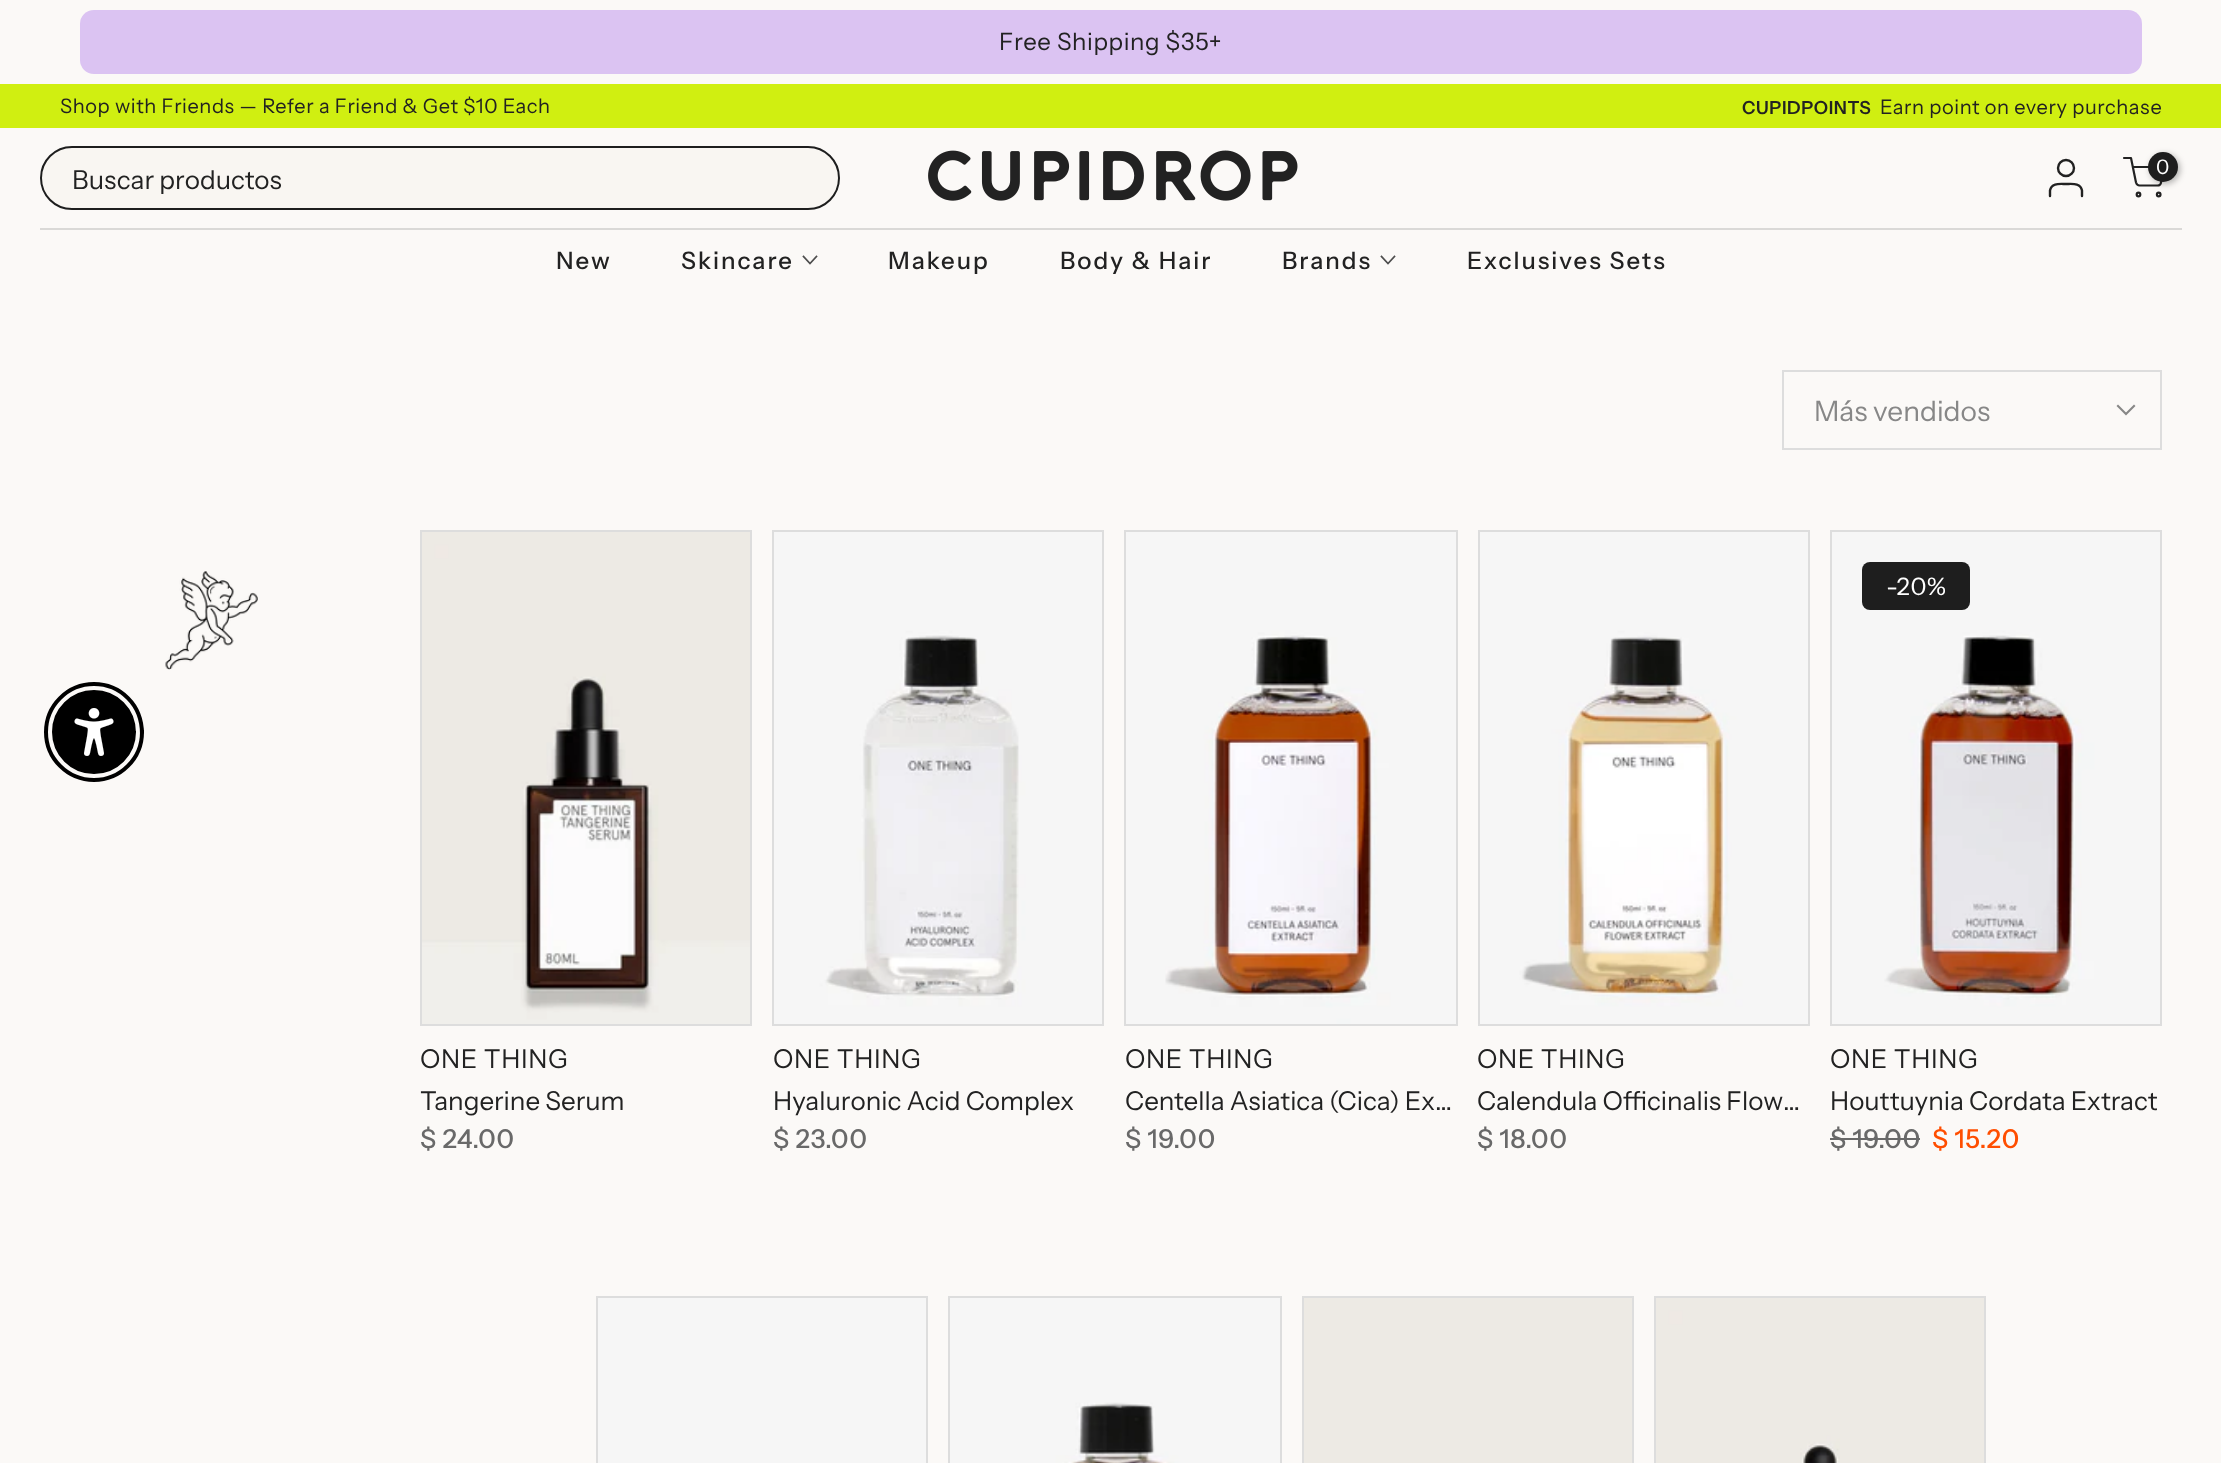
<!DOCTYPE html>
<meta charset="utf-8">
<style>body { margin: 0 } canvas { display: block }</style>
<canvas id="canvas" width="2221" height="1463"></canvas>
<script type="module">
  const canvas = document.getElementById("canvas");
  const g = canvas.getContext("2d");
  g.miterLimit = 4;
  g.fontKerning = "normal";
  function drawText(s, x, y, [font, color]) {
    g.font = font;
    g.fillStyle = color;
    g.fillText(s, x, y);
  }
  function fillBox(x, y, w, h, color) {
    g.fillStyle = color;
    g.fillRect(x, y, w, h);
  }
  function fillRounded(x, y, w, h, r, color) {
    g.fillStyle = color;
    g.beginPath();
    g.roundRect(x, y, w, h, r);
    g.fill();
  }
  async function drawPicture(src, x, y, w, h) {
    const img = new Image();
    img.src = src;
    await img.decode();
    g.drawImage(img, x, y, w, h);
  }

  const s1 = ["24px Instrument Sans", "#222222"];
  const s2 = ["20px Instrument Sans", "#222222"];
  const s3 = ["600 18px Instrument Sans", "#222222"];
  const s4 = ["20px Instrument Sans", "#FFFFFF"];
  const s5 = ["26px Instrument Sans", "#222222"];
  const s6 = ["500 24px Instrument Sans", "#222222"];
  const s7 = ["28px Instrument Sans", "#878787"];
  const s8 = ["500 26px Instrument Sans", "#696969"];
  const s9 = ["24px Instrument Sans", "#FFFFFF"];
  const s10 = ["500 26px Instrument Sans", "#FF4E00"];

  fillBox(0, 0, 2221, 1463, "#FBF9F7");
  fillRounded(80, 10, 2062, 64, 14, "#DBC3F2");
  g.letterSpacing = "0.6px";
  drawText("Free Shipping $35+", 999, 50, s1);
  fillBox(0, 84, 2221, 44, "#D0EF11");
  drawText("Shop with Friends — Refer a Friend & Get $10 Each", 60, 113, s2);
  drawText("CUPIDPOINTS", 1742, 114, s3);
  drawText("Earn point on every purchase", 1880, 114, s2);
  fillBox(40, 228, 2142, 2, "#DAD9D7");
  await drawPicture("pic1.png", 928, 150, 370, 51);
  g.beginPath();
  g.arc(2066, 168, 8, 0, Math.PI * 2);
  g.strokeStyle = "#222222";
  g.lineWidth = 2.4;
  g.stroke();
  g.beginPath();
  g.moveTo(2082, 196);
  g.lineTo(2082, 190.5);
  g.bezierCurveTo(2080.5, 182.5, 2072, 184, 2066, 184);
  g.bezierCurveTo(2060, 184, 2051.5, 182.5, 2050, 190.5);
  g.lineTo(2050, 196);
  g.lineCap = "round";
  g.lineJoin = "round";
  g.stroke();
  g.beginPath();
  g.moveTo(2124, 158);
  g.lineTo(2131, 158);
  g.lineTo(2136, 182.5);
  g.bezierCurveTo(2136.5, 184, 2138, 185.5, 2139.5, 185.5);
  g.lineTo(2157.5, 185.5);
  g.bezierCurveTo(2159.5, 185.5, 2161, 184, 2161, 182.5);
  g.lineTo(2164, 167);
  g.lineTo(2133, 167);
  g.lineWidth = 2.2;
  g.stroke();
  g.beginPath();
  g.arc(2138.5, 194.5, 1.8, 0, Math.PI * 2);
  g.stroke();
  g.beginPath();
  g.arc(2158.7, 194.5, 1.8, 0, Math.PI * 2);
  g.stroke();
  g.fillStyle = "rgba(0, 0, 0, 0.3)";
  g.filter = "blur(3px)";
  g.beginPath();
  g.roundRect(2150, 154, 30, 30, 15);
  g.fill();
  g.filter = "none";
  g.fillStyle = "#1E1E1E";
  g.beginPath();
  g.arc(2163, 167, 15, 0, Math.PI * 2);
  g.fill();
  g.letterSpacing = "0px";
  drawText("0", 2156, 174, s4);
  g.fillStyle = "#F9F6F2";
  g.beginPath();
  g.roundRect(41, 147, 798, 62, 31);
  g.fill();
  g.strokeStyle = "#1E1E1E";
  g.lineWidth = 2;
  g.lineJoin = "miter";
  g.stroke();
  g.save();
  g.beginPath();
  g.rect(72, 162, 666, 32);
  g.clip();
  drawText("Buscar productos", 72, 189, s5);
  g.restore();
  g.letterSpacing = "2px";
  drawText("New", 556, 269, s6);
  drawText("Skincare", 681, 269, s6);
  g.beginPath();
  g.moveTo(816.5, 256.5);
  g.lineTo(810, 263.5);
  g.lineTo(803.5, 256.5);
  g.strokeStyle = "#4D4D4D";
  g.lineWidth = 1.7;
  g.lineCap = "square";
  g.stroke();
  drawText("Makeup", 888, 269, s6);
  drawText("Body & Hair", 1060, 269, s6);
  drawText("Brands", 1282, 269, s6);
  g.beginPath();
  g.moveTo(1394.5, 256.5);
  g.lineTo(1388, 263.5);
  g.lineTo(1381.5, 256.5);
  g.stroke();
  drawText("Exclusives Sets", 1467, 269, s6);
  g.strokeStyle = "#DDDDDD";
  g.lineWidth = 2;
  g.strokeRect(1783, 371, 378, 78);
  g.letterSpacing = "0px";
  drawText("Más vendidos", 1814, 421, s7);
  g.beginPath();
  g.moveTo(2134, 406);
  g.lineTo(2126, 414);
  g.lineTo(2118, 406);
  g.strokeStyle = "#878787";
  g.lineWidth = 2.1;
  g.stroke();
  await drawPicture("pic2.png", 165, 571, 93, 99);
  g.strokeStyle = "#DDDDDD";
  g.lineWidth = 2;
  g.strokeRect(421, 531, 330, 494);
  await drawPicture("pic3.png", 422, 532, 328, 492);
  g.letterSpacing = "0.6px";
  drawText("ONE THING", 420, 1068, s5);
  g.letterSpacing = "0px";
  drawText("Tangerine Serum", 420, 1110, s5);
  g.letterSpacing = "0.6px";
  drawText("$ 24.00", 420, 1148, s8);
  g.strokeRect(773, 531, 330, 494);
  await drawPicture("pic4.png", 774, 532, 328, 492);
  drawText("ONE THING", 773, 1068, s5);
  g.letterSpacing = "0px";
  drawText("Hyaluronic Acid Complex", 773, 1110, s5);
  g.letterSpacing = "0.6px";
  drawText("$ 23.00", 773, 1148, s8);
  g.strokeRect(1125, 531, 332, 494);
  await drawPicture("pic5.png", 1126, 532, 330, 492);
  drawText("ONE THING", 1125, 1068, s5);
  g.letterSpacing = "0px";
  drawText("Centella Asiatica (Cica) Ex…", 1125, 1110, s5);
  g.letterSpacing = "0.6px";
  drawText("$ 19.00", 1125, 1148, s8);
  g.strokeRect(1479, 531, 330, 494);
  await drawPicture("pic6.png", 1480, 532, 328, 492);
  drawText("ONE THING", 1477, 1068, s5);
  g.letterSpacing = "0px";
  drawText("Calendula Officinalis Flow…", 1477, 1110, s5);
  g.letterSpacing = "0.6px";
  drawText("$ 18.00", 1477, 1148, s8);
  g.strokeRect(1831, 531, 330, 494);
  await drawPicture("pic7.png", 1832, 532, 328, 492);
  fillRounded(1862, 562, 108, 48, 8, "#1E1E1E");
  drawText("-20%", 1886, 595, s9);
  drawText("ONE THING", 1830, 1068, s5);
  g.letterSpacing = "0px";
  drawText("Houttuynia Cordata Extract", 1830, 1110, s5);
  g.letterSpacing = "0.6px";
  drawText("$ 19.00", 1830, 1148, s8);
  fillBox(1830, 1138, 90, 2, "#696969");
  drawText("$ 15.20", 1932, 1148, s10);
  g.strokeRect(597, 1297, 330, 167);
  fillBox(598, 1298, 328, 165, "#F6F6F6");
  g.strokeRect(949, 1297, 332, 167);
  await drawPicture("pic8.png", 950, 1298, 330, 165);
  g.strokeRect(1303, 1297, 330, 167);
  fillBox(1304, 1298, 328, 165, "#EDEAE4");
  g.strokeRect(1655, 1297, 330, 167);
  await drawPicture("pic9.png", 1656, 1298, 328, 165);
  g.beginPath();
  g.arc(94, 732, 48, 0, Math.PI * 2);
  g.strokeStyle = "#000000";
  g.lineWidth = 4;
  g.stroke();
  g.fillStyle = "#000000";
  g.beginPath();
  g.arc(94, 732, 41, 0, Math.PI * 2);
  g.fill();
  g.lineWidth = 2;
  g.stroke();
  await drawPicture("pic10.png", 74, 708, 40, 48);
</script>
